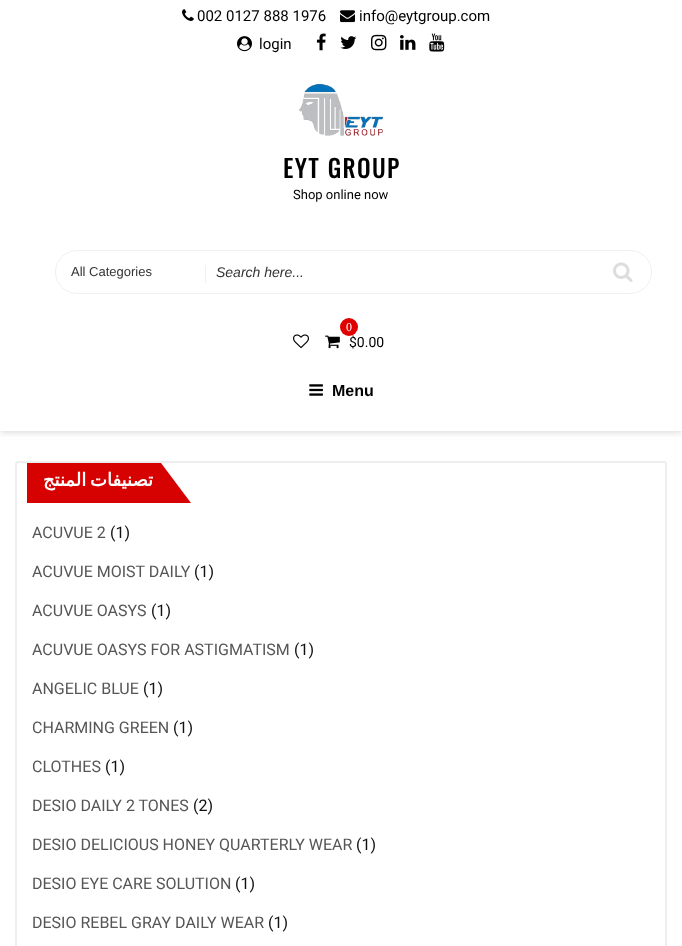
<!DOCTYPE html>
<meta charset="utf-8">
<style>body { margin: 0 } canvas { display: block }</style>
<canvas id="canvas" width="682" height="946"></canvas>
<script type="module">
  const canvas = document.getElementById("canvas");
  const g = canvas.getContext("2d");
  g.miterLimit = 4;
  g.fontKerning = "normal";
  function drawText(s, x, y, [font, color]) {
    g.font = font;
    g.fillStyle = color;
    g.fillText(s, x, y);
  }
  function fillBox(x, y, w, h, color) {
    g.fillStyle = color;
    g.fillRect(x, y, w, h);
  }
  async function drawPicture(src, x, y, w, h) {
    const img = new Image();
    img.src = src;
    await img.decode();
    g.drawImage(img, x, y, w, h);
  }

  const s1 = ["15px Roboto", "#000000"];
  const s2 = ["bold 24px Oswald", "#000000"];
  const s3 = ["13px Roboto", "#000000"];
  const s4 = ["13px Liberation Sans", "#333333"];
  const s5 = ["italic 14px Liberation Sans", "#333333"];
  const s6 = ["14px Roboto", "#000000"];
  const s7 = ["12px Liberation Serif", "#FFFFFF"];
  const s8 = ["bold 16px Liberation Sans", "#000000"];
  const s9 = ["bold 18px DejaVu Sans", "#FFFFFF"];
  const s10 = ["16px Roboto", "#565656"];
  const s11 = ["16px Roboto", "#111111"];

  fillBox(0, 0, 682, 946, "#FFFFFF");
  g.save();
  g.beginPath();
  g.rect(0, 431, 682, 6);
  g.clip();
  g.fillStyle = "rgba(106, 106, 106, 0.28)";
  g.filter = "blur(3.5px)";
  g.beginPath();
  g.rect(0, 1, 682, 431);
  g.fill();
  g.filter = "none";
  g.restore();
  await drawPicture("pic1.png", 182, 9, 12, 12);
  drawText("002 0127 888 1976", 197, 21, s1);
  await drawPicture("pic2.png", 340, 10, 15, 13);
  drawText("info@eytgroup.com", 359, 21, s1);
  await drawPicture("pic3.png", 237, 36, 15, 16);
  drawText("login", 259, 49, s1);
  await drawPicture("pic4.png", 316, 33, 10, 18);
  await drawPicture("pic5.png", 340, 36, 17, 13);
  await drawPicture("pic6.png", 371, 34, 16, 17);
  await drawPicture("pic7.png", 400, 35, 16, 15);
  await drawPicture("pic8.png", 429, 33, 16, 19);
  await drawPicture("pic9.png", 299, 84, 84, 52);
  g.letterSpacing = "2px";
  drawText("EYT GROUP", 283, 178, s2);
  g.letterSpacing = "0px";
  drawText("Shop online now", 293, 199, s3);
  g.beginPath();
  g.roundRect(55.5, 250.5, 596, 43, 21.5);
  g.strokeStyle = "#F0F0F0";
  g.stroke();
  drawText("All Categories", 71, 276, s4);
  fillBox(205, 265, 1, 18, "#F0F0F0");
  drawText("Search here...", 216, 277, s5);
  await drawPicture("pic10.png", 613, 262, 20, 20);
  await drawPicture("pic11.png", 293, 334, 16, 15);
  drawText("$0.00", 349, 347, s6);
  g.fillStyle = "#DF0000";
  g.beginPath();
  g.arc(349, 327, 9, 0, Math.PI * 2);
  g.fill();
  drawText("0", 346, 331, s7);
  await drawPicture("pic12.png", 325, 335, 15, 14);
  await drawPicture("pic13.png", 309, 384, 14, 12);
  drawText("Menu", 332, 396, s8);
  g.beginPath();
  g.roundRect(16, 462, 650, 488, 2);
  g.strokeStyle = "#EEEEEE";
  g.lineWidth = 2;
  g.stroke();
  fillBox(27, 463, 134, 40, "#D60202");
  g.wordSpacing = "-2px";
  g.direction = "rtl";
  drawText("تصنيفات المنتج", 153, 486, s9);
  g.fillStyle = "#D60202";
  g.beginPath();
  g.moveTo(161, 503);
  g.lineTo(161, 463);
  g.lineTo(191, 503);
  g.closePath();
  g.fill();
  g.wordSpacing = "0px";
  g.direction = "ltr";
  drawText("ACUVUE 2", 32, 538, s10);
  drawText("(1)", 110, 538, s11);
  drawText("ACUVUE MOIST DAILY", 32, 577, s10);
  drawText("(1)", 194, 577, s11);
  drawText("ACUVUE OASYS", 32, 616, s10);
  drawText("(1)", 151, 616, s11);
  drawText("ACUVUE OASYS FOR ASTIGMATISM", 32, 655, s10);
  drawText("(1)", 294, 655, s11);
  drawText("ANGELIC BLUE", 32, 694, s10);
  drawText("(1)", 143, 694, s11);
  drawText("CHARMING GREEN", 32, 733, s10);
  drawText("(1)", 173, 733, s11);
  drawText("CLOTHES", 32, 772, s10);
  drawText("(1)", 105, 772, s11);
  drawText("DESIO DAILY 2 TONES", 32, 811, s10);
  drawText("(2)", 193, 811, s11);
  drawText("DESIO DELICIOUS HONEY QUARTERLY WEAR", 32, 850, s10);
  drawText("(1)", 356, 850, s11);
  drawText("DESIO EYE CARE SOLUTION", 32, 889, s10);
  drawText("(1)", 235, 889, s11);
  drawText("DESIO REBEL GRAY DAILY WEAR", 32, 928, s10);
  drawText("(1)", 268, 928, s11);
</script>
